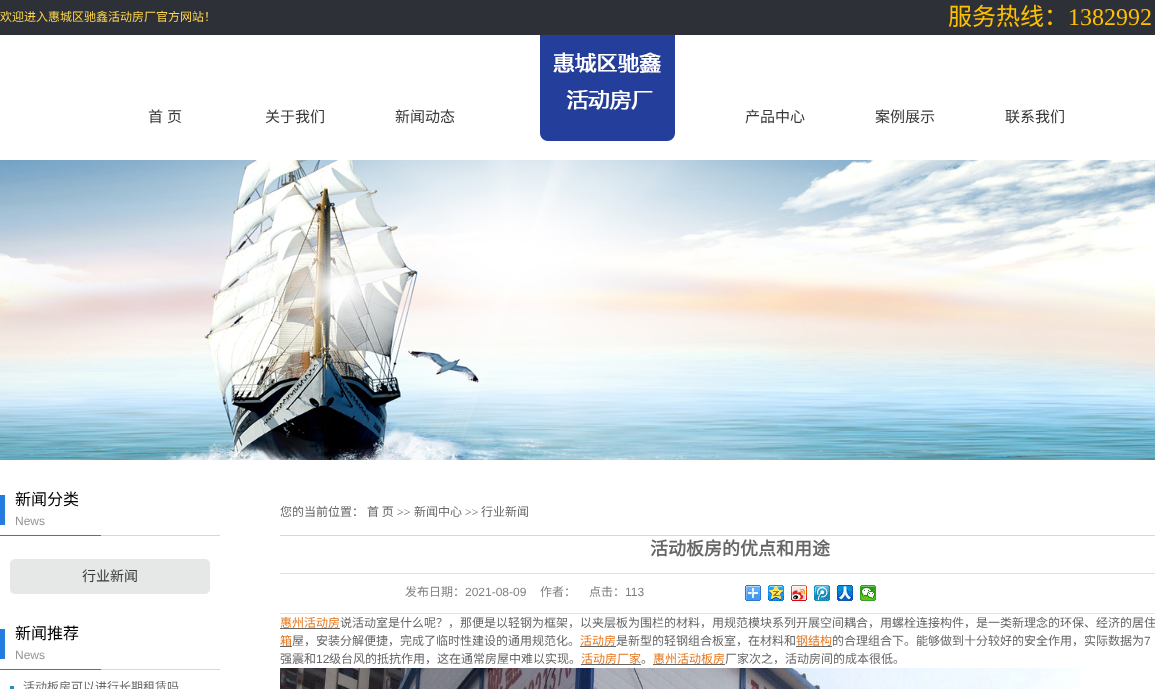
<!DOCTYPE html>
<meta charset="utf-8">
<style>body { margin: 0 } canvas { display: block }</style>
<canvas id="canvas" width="1155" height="689"></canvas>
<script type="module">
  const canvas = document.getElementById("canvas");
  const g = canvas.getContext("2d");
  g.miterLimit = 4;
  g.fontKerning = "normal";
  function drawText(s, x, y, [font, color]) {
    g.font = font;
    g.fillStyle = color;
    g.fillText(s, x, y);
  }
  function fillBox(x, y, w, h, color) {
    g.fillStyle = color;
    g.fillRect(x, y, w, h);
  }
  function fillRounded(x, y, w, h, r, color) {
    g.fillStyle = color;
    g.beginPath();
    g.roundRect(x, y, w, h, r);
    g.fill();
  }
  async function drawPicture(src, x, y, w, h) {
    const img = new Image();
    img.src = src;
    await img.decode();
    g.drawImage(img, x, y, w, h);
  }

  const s1 = ["12px Noto Sans CJK SC", "#FED64D"];
  const s2 = ["24px Noto Sans CJK SC", "#FFC000"];
  const s3 = ["24px Liberation Serif", "#FFC000"];
  const s4 = ["15px Noto Sans CJK SC", "#383838"];
  const s5 = ["16px Noto Sans CJK SC", "#000000"];
  const s6 = ["12px Liberation Sans", "#949494"];
  const s7 = ["14px Noto Sans CJK SC", "#383838"];
  const s8 = ["12px Noto Sans CJK SC", "#666666"];
  const s9 = ["12px Liberation Serif", "#666666"];
  const s10 = ["bold 18px Noto Sans CJK SC", "#666666"];
  const s11 = ["12px Noto Sans CJK SC", "#808080"];
  const s12 = ["12px Liberation Sans", "#808080"];
  const s13 = ["12px Noto Sans CJK SC", "#E87518"];
  const s14 = ["12px Liberation Sans", "#666666"];

  fillBox(0, 0, 1155, 689, "#FFFFFF");
  fillBox(0, 0, 1155, 35, "#2E3037");
  drawText("欢迎进入惠城区驰鑫活动房厂官方网站！", 0, 21, s1);
  drawText("服务热线：", 948, 25, s2);
  drawText("1382992", 1068, 25, s3);
  await drawPicture("pic1.png", 540, 35, 135, 106);
  drawText("首", 148, 122, s4);
  drawText("页", 167, 122, s4);
  drawText("关于我们", 265, 122, s4);
  drawText("新闻动态", 395, 122, s4);
  drawText("产品中心", 745, 122, s4);
  drawText("案例展示", 875, 122, s4);
  drawText("联系我们", 1005, 122, s4);
  await drawPicture("pic2.png", 0, 160, 1155, 300);
  await drawPicture("pic3.png", 0, 495, 220, 41);
  drawText("新闻分类", 15, 505, s5);
  drawText("News", 15, 525, s6);
  fillRounded(10, 559, 200, 35, 5, "#E6E8E7");
  drawText("行业新闻", 82, 581, s7);
  await drawPicture("pic3.png", 0, 629, 220, 41);
  drawText("新闻推荐", 15, 639, s5);
  drawText("News", 15, 659, s6);
  await drawPicture("pic4.png", 10, 686, 4, 3);
  drawText("活动板房可以进行长期租赁吗", 23, 691, s8);
  fillBox(280, 535, 875, 1, "#D8D8D8");
  drawText("您的当前位置：", 280, 516, s8);
  drawText("首 页", 367, 516, s8);
  drawText(">>", 397, 516, s9);
  drawText("新闻中心", 414, 516, s8);
  drawText(">>", 465, 516, s9);
  drawText("行业新闻", 481, 516, s8);
  fillBox(280, 573, 875, 1, "#E0E1DC");
  drawText("活动板房的优点和用途", 650, 555, s10);
  fillBox(280, 613, 875, 1, "#E1E4E6");
  drawText("发布日期：", 405, 596, s11);
  drawText("2021-08-09", 465, 596, s12);
  drawText("作者：", 540, 596, s11);
  drawText("点击：", 589, 596, s11);
  drawText("113", 625, 596, s12);
  await drawPicture("pic5.png", 745, 585, 16, 16);
  await drawPicture("pic6.png", 768, 585, 16, 16);
  await drawPicture("pic7.png", 791, 585, 16, 16);
  await drawPicture("pic8.png", 814, 585, 16, 16);
  await drawPicture("pic9.png", 837, 585, 16, 16);
  await drawPicture("pic10.png", 860, 585, 16, 16);
  drawText("惠州活动房", 280, 627, s13);
  fillBox(280, 628, 60, 1, "#666666");
  drawText("说活动室是什么呢？，那便是以轻钢为框架，以夹层板为围栏的材料，用规范模块系列开展空间耦合，用螺栓连接构件，是一类新理念的环保、经济的居住", 340, 627, s8);
  drawText("箱", 280, 645, s13);
  fillBox(280, 646, 12, 1, "#666666");
  drawText("屋，安装分解便捷，完成了临时性建设的通用规范化。", 292, 645, s8);
  drawText("活动房", 580, 645, s13);
  fillBox(580, 646, 36, 1, "#666666");
  drawText("是新型的轻钢组合板室，在材料和", 616, 645, s8);
  drawText("钢结构", 796, 645, s13);
  fillBox(796, 646, 36, 1, "#666666");
  drawText("的合理组合下。能够做到十分较好的安全作用，实际数据为", 832, 645, s8);
  drawText("7", 1144, 645, s14);
  drawText("强震和", 280, 663, s8);
  drawText("12", 316, 663, s14);
  drawText("级台风的抵抗作用，这在通常房屋中难以实现。", 329, 663, s8);
  drawText("活动房厂家", 581, 663, s13);
  fillBox(581, 664, 60, 1, "#666666");
  drawText("。", 641, 663, s8);
  drawText("惠州活动板房", 653, 663, s13);
  fillBox(653, 664, 72, 1, "#666666");
  drawText("厂家次之，活动房间的成本很低。", 725, 663, s8);
  await drawPicture("pic11.png", 280, 668, 800, 21);
</script>
